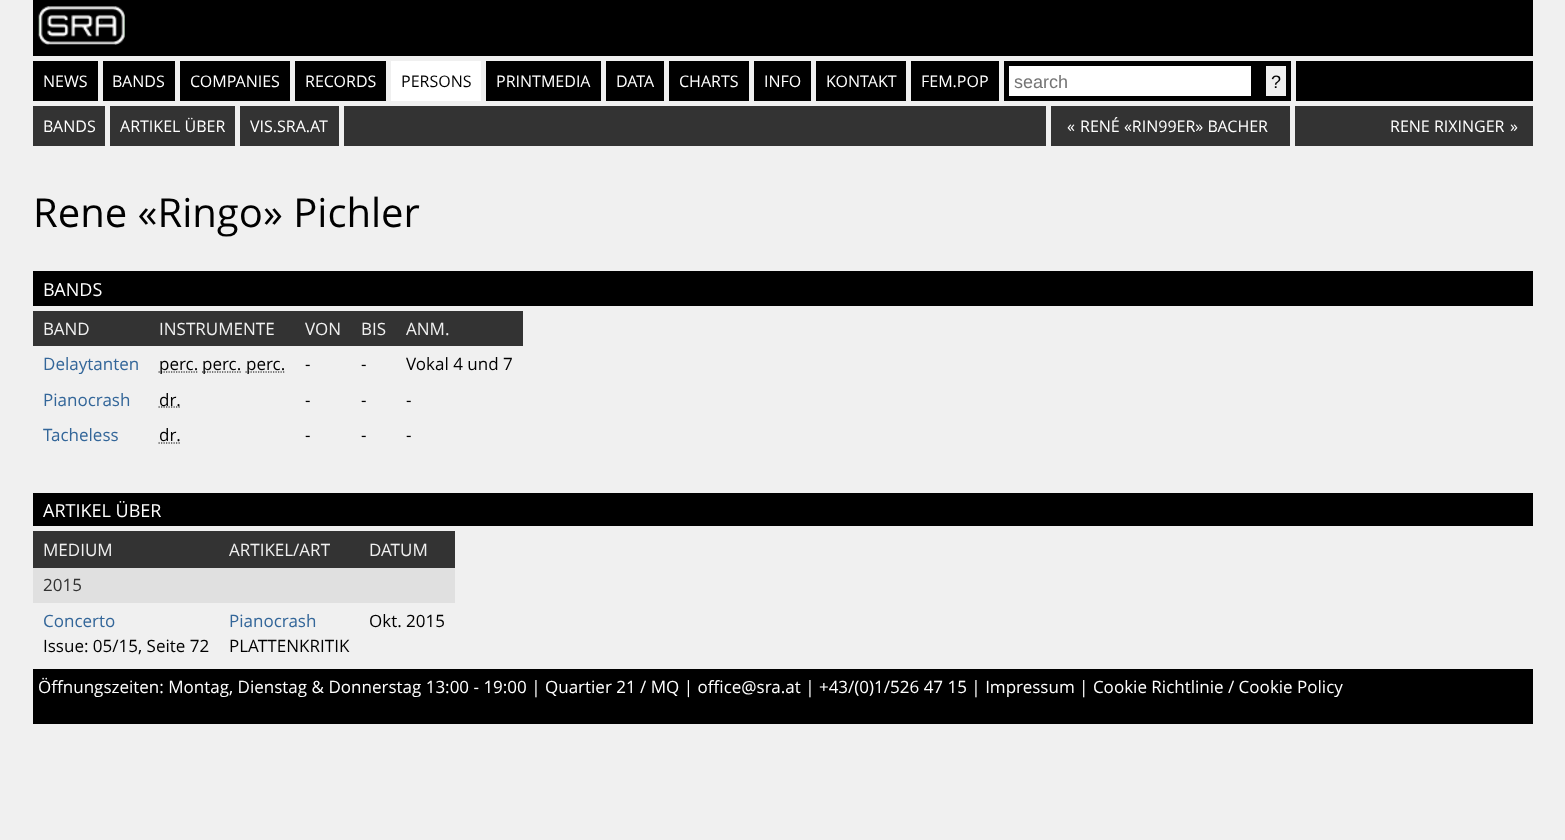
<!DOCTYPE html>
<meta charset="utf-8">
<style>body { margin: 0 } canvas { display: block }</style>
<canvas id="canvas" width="1565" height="840"></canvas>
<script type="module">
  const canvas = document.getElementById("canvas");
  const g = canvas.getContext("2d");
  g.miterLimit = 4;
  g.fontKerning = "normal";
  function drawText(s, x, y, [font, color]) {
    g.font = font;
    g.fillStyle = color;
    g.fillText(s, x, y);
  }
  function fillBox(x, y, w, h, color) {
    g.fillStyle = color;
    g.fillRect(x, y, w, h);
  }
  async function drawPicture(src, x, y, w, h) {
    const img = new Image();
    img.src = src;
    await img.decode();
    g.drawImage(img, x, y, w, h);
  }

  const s1 = ["16px Open Sans", "#FFFFFF"];
  const s2 = ["16px Open Sans", "#000000"];
  const s3 = ["18px Liberation Sans", "#757575"];
  const s4 = ["18px Liberation Sans", "#000000"];
  const s5 = ["40px Open Sans", "#000000"];
  const s6 = ["18px Open Sans", "#FFFFFF"];
  const s7 = ["17px Open Sans", "#F0F0F0"];
  const s8 = ["17px Open Sans", "#336699"];
  const s9 = ["17px Open Sans", "#000000"];
  const s10 = ["17px Open Sans", "#333333"];
  const s11 = ["17px Open Sans", "#FFFFFF"];

  fillBox(0, 0, 1565, 840, "#F0F0F0");
  fillBox(33, 0, 1500, 56, "#000000");
  await drawPicture("pic1.png", 37, 6, 88, 39);
  fillBox(33, 61, 65, 40, "#000000");
  drawText("NEWS", 43, 87, s1);
  fillBox(103, 61, 72, 40, "#000000");
  drawText("BANDS", 112, 87, s1);
  fillBox(180, 61, 110, 40, "#000000");
  drawText("COMPANIES", 190, 87, s1);
  fillBox(295, 61, 91, 40, "#000000");
  drawText("RECORDS", 305, 87, s1);
  fillBox(391, 61, 90, 40, "#FFFFFF");
  drawText("PERSONS", 401, 87, s2);
  fillBox(486, 61, 115, 40, "#000000");
  drawText("PRINTMEDIA", 496, 87, s1);
  fillBox(606, 61, 58, 40, "#000000");
  drawText("DATA", 616, 87, s1);
  fillBox(669, 61, 80, 40, "#000000");
  drawText("CHARTS", 679, 87, s1);
  fillBox(754, 61, 57, 40, "#000000");
  drawText("INFO", 764, 87, s1);
  fillBox(816, 61, 90, 40, "#000000");
  drawText("KONTAKT", 826, 87, s1);
  fillBox(911, 61, 88, 40, "#000000");
  drawText("FEM.POP", 921, 87, s1);
  fillBox(1004, 61, 287, 40, "#000000");
  fillBox(1009, 66, 242, 30, "#FFFFFF");
  drawText("search", 1014, 88, s3);
  fillBox(1266, 66, 20, 30, "#EFEFEF");
  drawText("?", 1271, 88, s4);
  fillBox(1296, 61, 237, 40, "#000000");
  fillBox(33, 106, 72, 40, "#333333");
  drawText("BANDS", 43, 132, s1);
  fillBox(110, 106, 125, 40, "#333333");
  drawText("ARTIKEL ÜBER", 120, 132, s1);
  fillBox(240, 106, 99, 40, "#333333");
  drawText("VIS.SRA.AT", 250, 132, s1);
  fillBox(344, 106, 702, 40, "#333333");
  fillBox(1051, 106, 239, 40, "#333333");
  drawText("«", 1067, 132, s1);
  drawText("RENÉ «RIN99ER» BACHER", 1080, 132, s1);
  fillBox(1295, 106, 238, 40, "#333333");
  drawText("RENE RIXINGER", 1390, 132, s1);
  drawText("»", 1510, 132, s1);
  drawText("Rene «Ringo» Pichler", 33, 227, s5);
  fillBox(33, 271, 1500, 35, "#000000");
  drawText("BANDS", 43, 296, s6);
  fillBox(33, 311, 490, 35, "#333333");
  drawText("BAND", 43, 335, s7);
  drawText("INSTRUMENTE", 159, 335, s7);
  drawText("VON", 305, 335, s7);
  drawText("BIS", 361, 335, s7);
  drawText("ANM.", 406, 335, s7);
  drawText("Delaytanten", 43, 370, s8);
  g.beginPath();
  g.moveTo(158.5, 372);
  g.lineTo(197.5, 372);
  g.strokeStyle = "#000000";
  g.lineWidth = 1.2;
  g.setLineDash([1.25, 1.25]);
  g.stroke();
  drawText("perc.", 159, 370, s9);
  g.beginPath();
  g.moveTo(202, 372);
  g.lineTo(241.5, 372);
  g.stroke();
  drawText("perc.", 202, 370, s9);
  g.beginPath();
  g.moveTo(245.5, 372);
  g.lineTo(285, 372);
  g.stroke();
  drawText("perc.", 246, 370, s9);
  drawText("-", 305, 370, s9);
  drawText("-", 361, 370, s9);
  drawText("Vokal 4 und 7", 406, 370, s9);
  drawText("Pianocrash", 43, 406, s8);
  g.beginPath();
  g.moveTo(158.5, 407);
  g.lineTo(180.5, 407);
  g.stroke();
  drawText("dr.", 159, 406, s9);
  drawText("-", 305, 406, s9);
  drawText("-", 361, 406, s9);
  drawText("-", 406, 406, s9);
  drawText("Tacheless", 43, 441, s8);
  drawText("dr.", 159, 441, s9);
  g.beginPath();
  g.moveTo(158.5, 443);
  g.lineTo(180.5, 443);
  g.stroke();
  drawText("-", 305, 441, s9);
  drawText("-", 361, 441, s9);
  drawText("-", 406, 441, s9);
  fillBox(33, 493, 1500, 33, "#000000");
  drawText("ARTIKEL ÜBER", 43, 517, s6);
  fillBox(33, 531, 422, 37, "#333333");
  drawText("MEDIUM", 43, 556, s7);
  drawText("ARTIKEL/ART", 229, 556, s7);
  drawText("DATUM", 369, 556, s7);
  fillBox(33, 568, 422, 35, "#E0E0E0");
  drawText("2015", 43, 591, s10);
  drawText("Concerto", 43, 627, s8);
  drawText("Issue: 05/15, Seite 72", 43, 652, s9);
  drawText("Pianocrash", 229, 627, s8);
  drawText("PLATTENKRITIK", 229, 652, s9);
  drawText("Okt. 2015", 369, 627, s9);
  fillBox(33, 669, 1500, 55, "#000000");
  drawText("Öffnungszeiten: Montag, Dienstag & Donnerstag 13:00 - 19:00 | Quartier 21 / MQ | office@sra.at | +43/(0)1/526 47 15 | Impressum | Cookie Richtlinie / Cookie Policy", 38, 693, s11);
</script>
